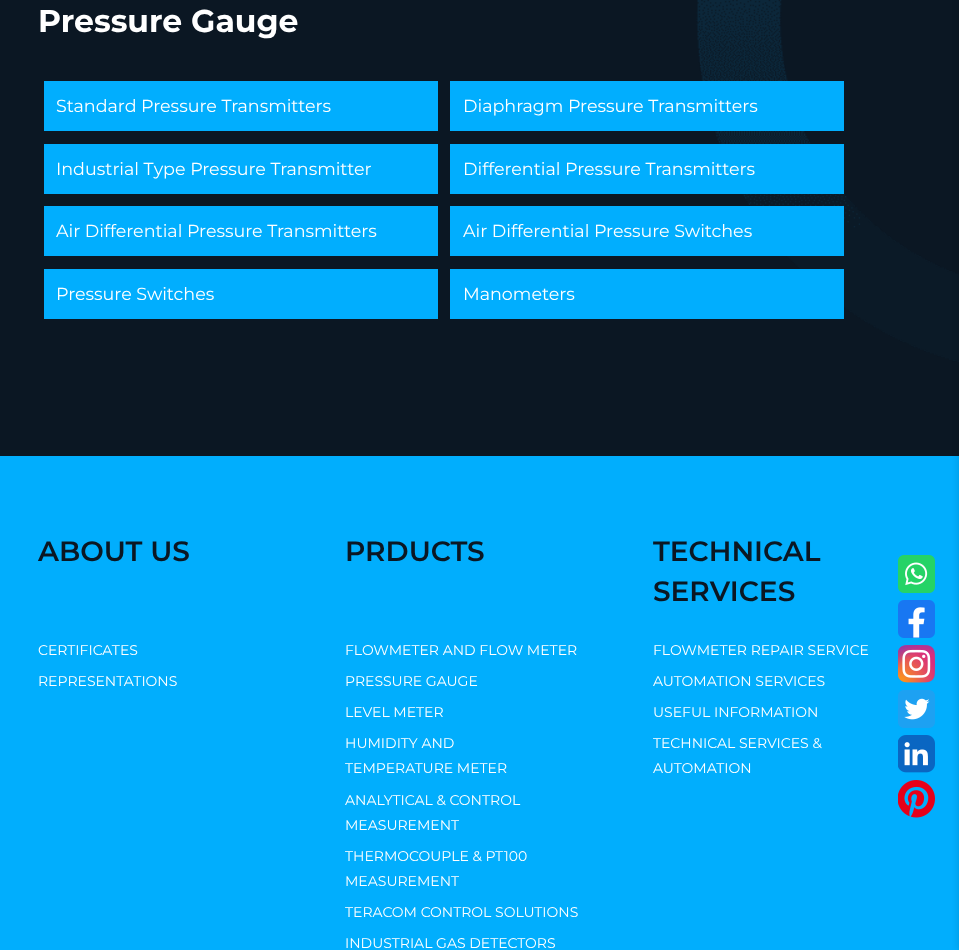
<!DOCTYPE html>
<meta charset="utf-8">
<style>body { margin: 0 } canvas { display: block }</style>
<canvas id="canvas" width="959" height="950"></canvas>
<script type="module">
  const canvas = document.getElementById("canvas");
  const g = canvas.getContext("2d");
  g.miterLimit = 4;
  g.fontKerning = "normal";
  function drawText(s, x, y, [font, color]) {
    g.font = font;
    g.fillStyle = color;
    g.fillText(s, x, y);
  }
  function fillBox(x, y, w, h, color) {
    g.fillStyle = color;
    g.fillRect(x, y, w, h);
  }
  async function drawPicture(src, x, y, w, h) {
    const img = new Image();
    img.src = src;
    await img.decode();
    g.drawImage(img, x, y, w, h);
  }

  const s1 = ["bold 31.5px Montserrat", "#FFFFFF"];
  const s2 = ["17.5px Montserrat", "#FFFFFF"];
  const s3 = ["600 28px Montserrat", "#0B1723"];
  const s4 = ["14px Montserrat", "#FFFFFF"];

  fillBox(0, 0, 959, 950, "#0B1723");
  await drawPicture("pic1.png", 696, 0, 263, 362);
  drawText("Pressure Gauge", 38, 32, s1);
  fillBox(44, 81, 394, 50, "#01AEFE");
  drawText("Standard Pressure Transmitters", 56, 112, s2);
  fillBox(450, 81, 394, 50, "#01AEFE");
  drawText("Diaphragm Pressure Transmitters", 463, 112, s2);
  fillBox(44, 144, 394, 50, "#01AEFE");
  drawText("Industrial Type Pressure Transmitter", 56, 175, s2);
  fillBox(450, 144, 394, 50, "#01AEFE");
  drawText("Differential Pressure Transmitters", 463, 175, s2);
  fillBox(44, 206, 394, 50, "#01AEFE");
  drawText("Air Differential Pressure Transmitters", 56, 237, s2);
  fillBox(450, 206, 394, 50, "#01AEFE");
  drawText("Air Differential Pressure Switches", 463, 237, s2);
  fillBox(44, 269, 394, 50, "#01AEFE");
  drawText("Pressure Switches", 56, 300, s2);
  fillBox(450, 269, 394, 50, "#01AEFE");
  drawText("Manometers", 463, 300, s2);
  fillBox(0, 456, 959, 494, "#01AEFD");
  drawText("ABOUT US", 38, 561, s3);
  drawText("CERTIFICATES", 38, 655, s4);
  drawText("REPRESENTATIONS", 38, 686, s4);
  drawText("PRDUCTS", 345, 561, s3);
  drawText("FLOWMETER AND FLOW METER", 345, 655, s4);
  drawText("PRESSURE GAUGE", 345, 686, s4);
  drawText("LEVEL METER", 345, 717, s4);
  drawText("HUMIDITY AND", 345, 748, s4);
  drawText("TEMPERATURE METER", 345, 773, s4);
  drawText("ANALYTICAL & CONTROL", 345, 805, s4);
  drawText("MEASUREMENT", 345, 830, s4);
  drawText("THERMOCOUPLE & PT100", 345, 861, s4);
  drawText("MEASUREMENT", 345, 886, s4);
  drawText("TERACOM CONTROL SOLUTIONS", 345, 917, s4);
  drawText("INDUSTRIAL GAS DETECTORS", 345, 948, s4);
  g.save();
  g.beginPath();
  g.rect(653, 531, 270, 80);
  g.clip();
  drawText("TECHNICAL", 653, 561, s3);
  g.restore();
  drawText("SERVICES", 653, 601, s3);
  drawText("FLOWMETER REPAIR SERVICE", 653, 655, s4);
  drawText("AUTOMATION SERVICES", 653, 686, s4);
  drawText("USEFUL INFORMATION", 653, 717, s4);
  drawText("TECHNICAL SERVICES &", 653, 748, s4);
  drawText("AUTOMATION", 653, 773, s4);
  await drawPicture("pic2.png", 898, 555, 37, 38);
  await drawPicture("pic3.png", 898, 600, 37, 38);
  await drawPicture("pic4.png", 898, 645, 37, 38);
  await drawPicture("pic5.png", 898, 690, 37, 38);
  await drawPicture("pic6.png", 898, 735, 37, 38);
  await drawPicture("pic7.png", 898, 780, 37, 38);
  g.fillStyle = "rgba(0, 0, 0, 0.1)";
  g.filter = "blur(3px)";
  g.beginPath();
  g.rect(958, 0, 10, 950);
  g.fill();
  g.filter = "none";
</script>
